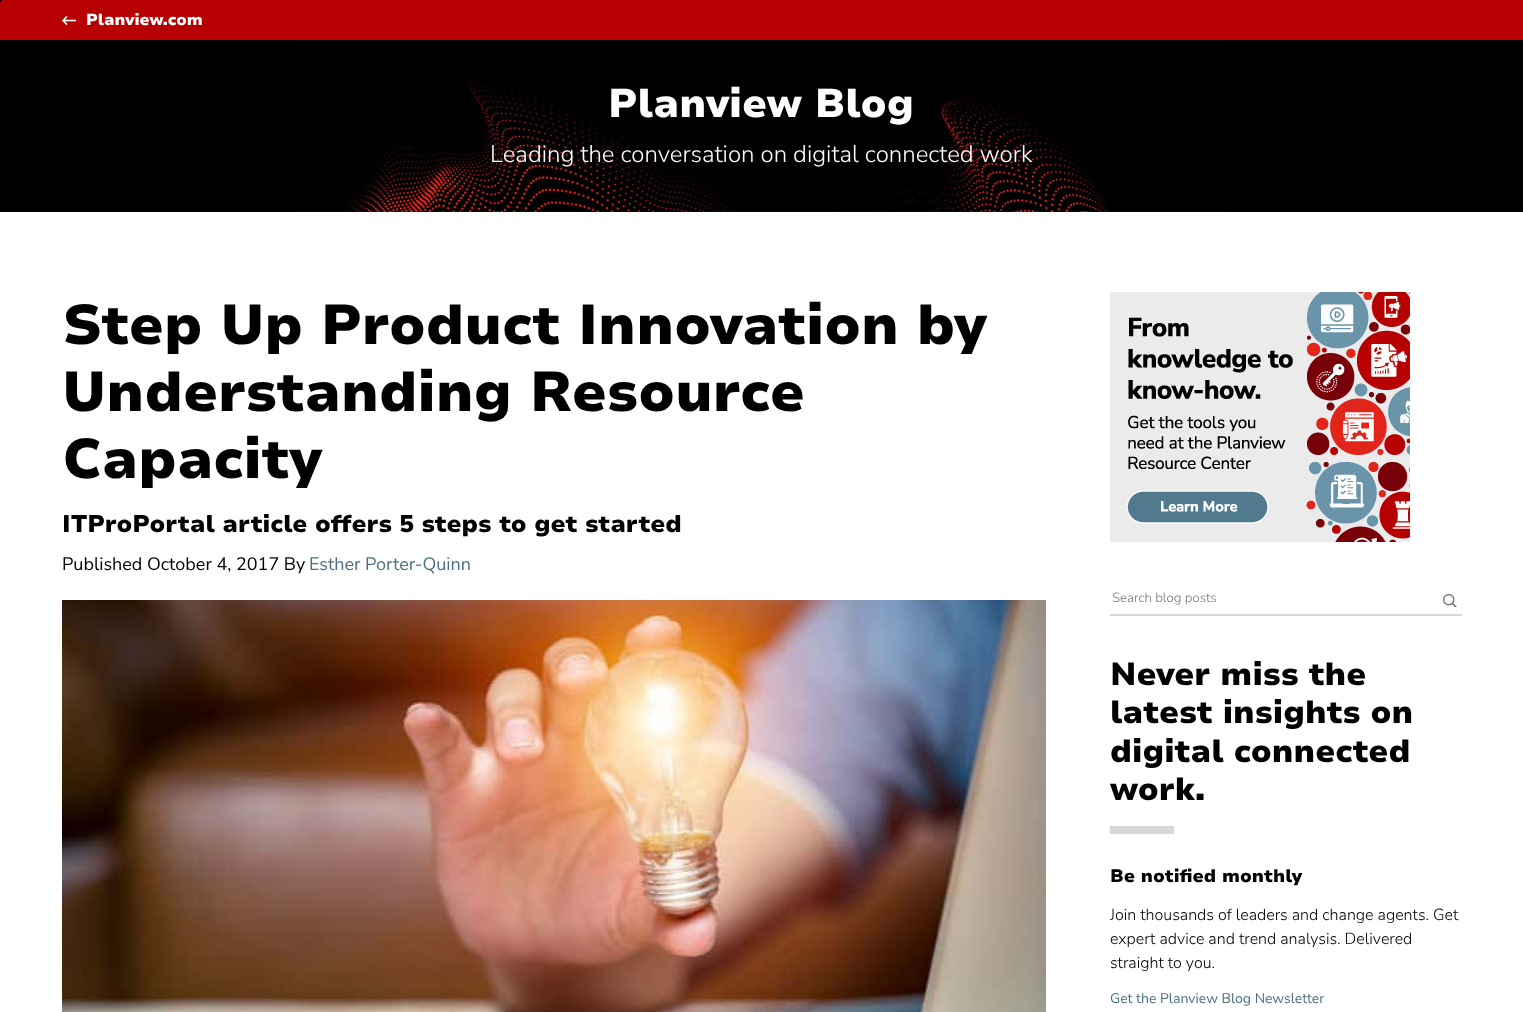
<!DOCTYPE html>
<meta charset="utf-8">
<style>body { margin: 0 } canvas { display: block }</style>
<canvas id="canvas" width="1523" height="1012"></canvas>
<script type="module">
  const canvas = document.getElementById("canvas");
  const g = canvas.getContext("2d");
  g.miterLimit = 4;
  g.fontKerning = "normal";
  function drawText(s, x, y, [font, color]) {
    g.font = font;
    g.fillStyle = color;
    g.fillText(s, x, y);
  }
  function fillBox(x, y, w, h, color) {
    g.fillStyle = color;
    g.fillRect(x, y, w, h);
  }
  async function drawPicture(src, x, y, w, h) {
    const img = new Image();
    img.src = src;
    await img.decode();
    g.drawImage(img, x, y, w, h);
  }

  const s1 = ["900 16px Nunito Sans", "#FFFFFF"];
  const s2 = ["900 40px Nunito Sans", "#FFFFFF"];
  const s3 = ["300 24px Nunito Sans", "#FFFFFF"];
  const s4 = ["900 56px Nunito Sans", "#000000"];
  const s5 = ["900 24px Nunito Sans", "#000000"];
  const s6 = ["18px Nunito Sans", "#000000"];
  const s7 = ["18px Nunito Sans", "#4A7082"];
  const s8 = ["300 13.25px Nunito Sans", "#757575"];
  const s9 = ["900 32px Nunito Sans", "#000000"];
  const s10 = ["900 18px Nunito Sans", "#000000"];
  const s11 = ["300 16px Nunito Sans", "#000000"];
  const s12 = ["14px Nunito Sans", "#4A7082"];

  fillBox(0, 0, 1523, 1012, "#FFFFFF");
  fillBox(0, 0, 1523, 40, "#B60001");
  fillBox(0, 0, 2, 2, "#000000");
  await drawPicture("pic1.png", 62, 16, 14, 9);
  drawText("Planview.com", 86, 25, s1);
  fillBox(0, 40, 1523, 172, "#000000");
  await drawPicture("pic2.png", 297, 40, 929, 172);
  drawText("Planview Blog", 608, 117, s2);
  drawText("Leading the conversation on digital connected work", 490, 162, s3);
  drawText("Step Up Product Innovation by", 62, 344, s4);
  drawText("Understanding Resource", 62, 411, s4);
  drawText("Capacity", 62, 478, s4);
  drawText("ITProPortal article offers 5 steps to get started", 62, 532, s5);
  drawText("Published October 4, 2017 By", 62, 570, s6);
  drawText("Esther Porter-Quinn", 309, 570, s7);
  await drawPicture("pic3.png", 62, 600, 984, 412);
  await drawPicture("pic4.png", 1110, 292, 300, 250);
  fillBox(1110, 614, 352, 2, "#D6D6D6");
  drawText("Search blog posts", 1112, 602, s8);
  await drawPicture("pic5.png", 1443, 594, 14, 13);
  drawText("Never miss the", 1110, 685, s9);
  drawText("latest insights on", 1110, 723, s9);
  drawText("digital connected", 1110, 762, s9);
  drawText("work.", 1110, 800, s9);
  fillBox(1110, 826, 64, 8, "#D6D6D6");
  drawText("Be notified monthly", 1110, 882, s10);
  drawText("Join thousands of leaders and change agents. Get", 1110, 920, s11);
  drawText("expert advice and trend analysis. Delivered", 1110, 944, s11);
  drawText("straight to you.", 1110, 968, s11);
  drawText("Get the Planview Blog Newsletter", 1110, 1003, s12);
</script>
